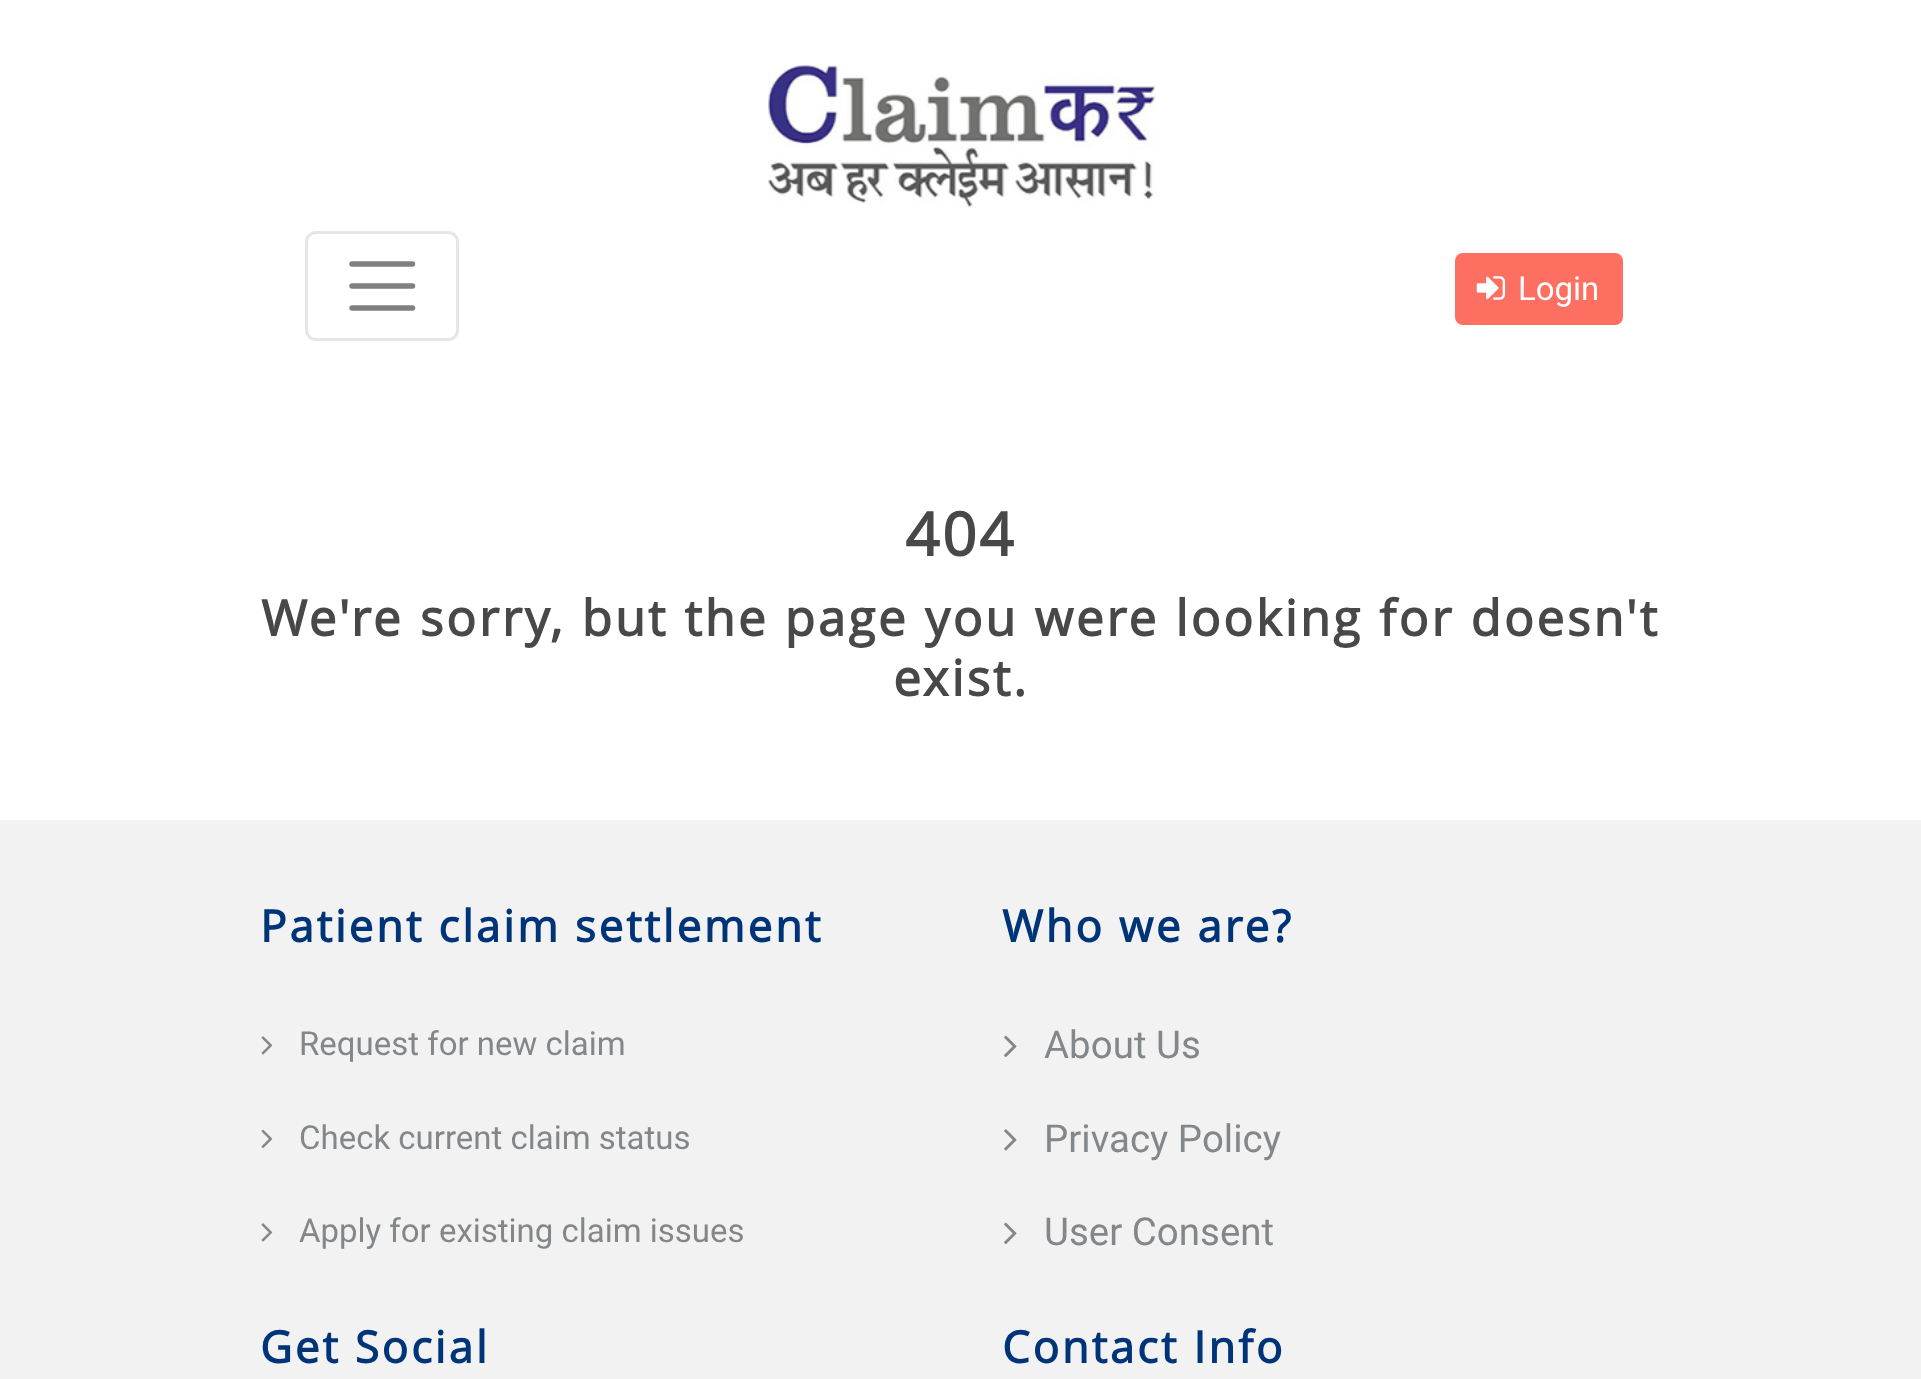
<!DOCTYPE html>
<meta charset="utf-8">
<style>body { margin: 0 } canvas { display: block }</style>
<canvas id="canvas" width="1921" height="1379"></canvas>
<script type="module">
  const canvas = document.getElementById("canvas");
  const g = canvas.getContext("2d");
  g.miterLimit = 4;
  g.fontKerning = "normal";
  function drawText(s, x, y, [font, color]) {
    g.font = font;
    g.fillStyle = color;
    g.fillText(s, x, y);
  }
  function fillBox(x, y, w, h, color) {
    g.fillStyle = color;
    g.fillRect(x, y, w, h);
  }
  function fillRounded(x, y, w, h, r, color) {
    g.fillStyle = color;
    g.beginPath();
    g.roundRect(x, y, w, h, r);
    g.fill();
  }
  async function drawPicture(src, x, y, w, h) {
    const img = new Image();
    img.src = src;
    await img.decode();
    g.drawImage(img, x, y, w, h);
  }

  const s1 = ["33px Roboto", "#FFFFFF"];
  const s2 = ["bold 60px Open Sans", "#484848"];
  const s3 = ["bold 49.5px Open Sans", "#484848"];
  const s4 = ["bold 44px Open Sans", "#003478"];
  const s5 = ["33px Roboto", "#83878A"];
  const s6 = ["38.5px Roboto", "#83878A"];

  fillBox(0, 0, 1921, 1379, "#FFFFFF");
  await drawPicture("pic1.png", 767, 65, 389, 142);
  g.beginPath();
  g.roundRect(306.5, 232.5, 151, 107, 9.5);
  g.strokeStyle = "#E6E6E6";
  g.lineWidth = 3;
  g.stroke();
  g.beginPath();
  g.moveTo(352, 264);
  g.lineTo(412.5, 264);
  g.moveTo(352, 286);
  g.lineTo(412.5, 286);
  g.moveTo(352, 308);
  g.lineTo(412.5, 308);
  g.strokeStyle = "#808080";
  g.lineWidth = 5.5;
  g.lineCap = "round";
  g.stroke();
  fillRounded(1455, 253, 168, 72, 8, "#FD6F61");
  await drawPicture("pic2.png", 1476, 276, 30, 24);
  drawText("Login", 1518, 300, s1);
  g.letterSpacing = "2.75px";
  drawText("404", 905, 556, s2);
  g.wordSpacing = "0.75px";
  drawText("We're sorry, but the page you were looking for doesn't", 261, 636, s3);
  g.wordSpacing = "0px";
  drawText("exist.", 893, 696, s3);
  fillBox(0, 820, 1921, 559, "#F2F2F2");
  drawText("Patient claim settlement", 260, 942, s4);
  await drawPicture("pic3.png", 261, 1036, 12, 19);
  g.letterSpacing = "0px";
  drawText("Request for new claim", 299, 1055, s5);
  await drawPicture("pic4.png", 261, 1129, 12, 19);
  drawText("Check current claim status", 299, 1149, s5);
  await drawPicture("pic3.png", 261, 1223, 12, 19);
  drawText("Apply for existing claim issues", 299, 1242, s5);
  g.letterSpacing = "2.75px";
  drawText("Who we are?", 1002, 942, s4);
  await drawPicture("pic5.png", 1004, 1035, 13, 22);
  g.letterSpacing = "0px";
  drawText("About Us", 1044, 1058, s6);
  await drawPicture("pic6.png", 1004, 1129, 13, 22);
  drawText("Privacy Policy", 1044, 1152, s6);
  await drawPicture("pic5.png", 1004, 1222, 13, 22);
  drawText("User Consent", 1044, 1245, s6);
  g.letterSpacing = "2.75px";
  drawText("Get Social", 260, 1363, s4);
  drawText("Contact Info", 1002, 1363, s4);
</script>
